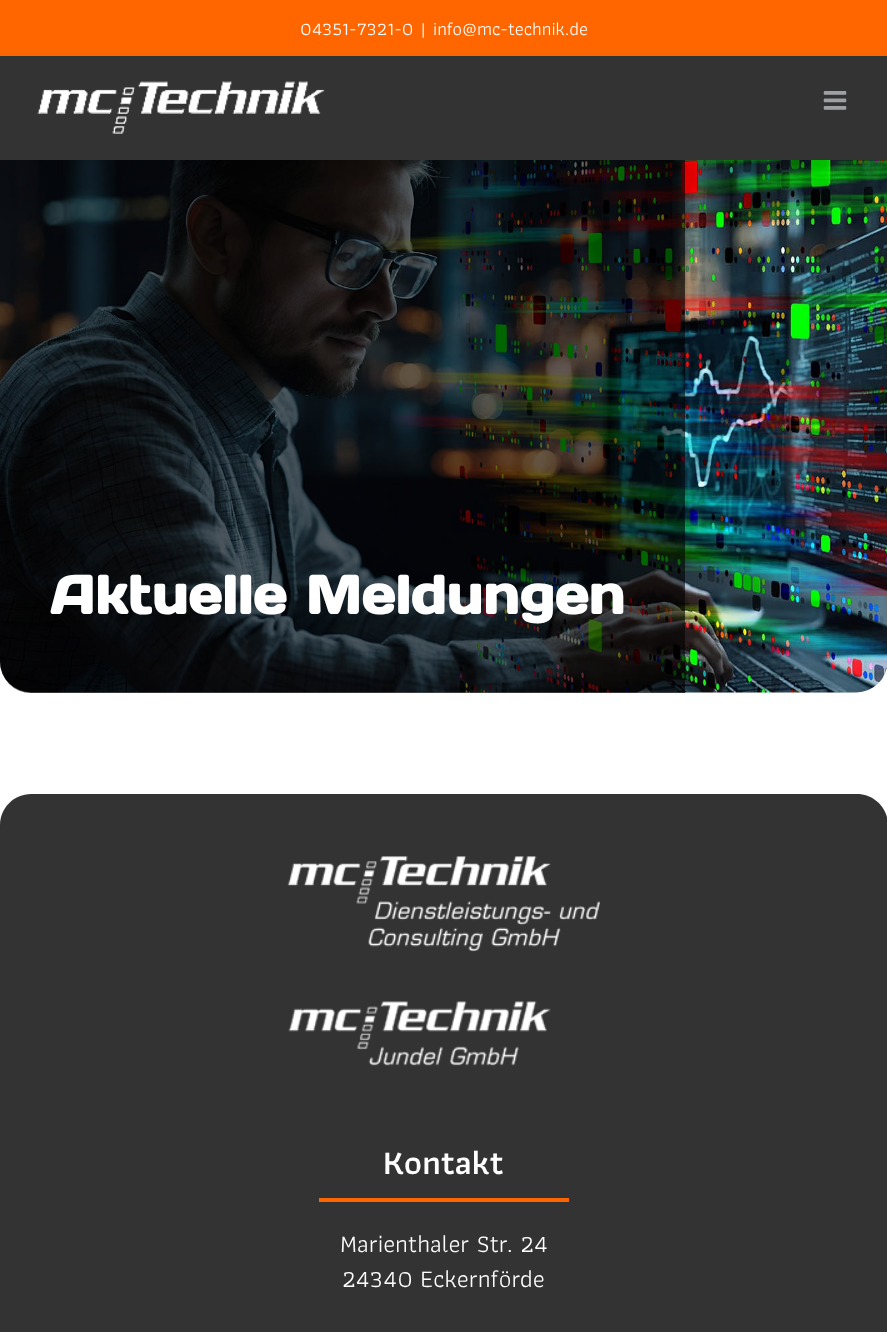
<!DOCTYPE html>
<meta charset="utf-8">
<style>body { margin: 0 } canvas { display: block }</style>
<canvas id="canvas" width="887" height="1332"></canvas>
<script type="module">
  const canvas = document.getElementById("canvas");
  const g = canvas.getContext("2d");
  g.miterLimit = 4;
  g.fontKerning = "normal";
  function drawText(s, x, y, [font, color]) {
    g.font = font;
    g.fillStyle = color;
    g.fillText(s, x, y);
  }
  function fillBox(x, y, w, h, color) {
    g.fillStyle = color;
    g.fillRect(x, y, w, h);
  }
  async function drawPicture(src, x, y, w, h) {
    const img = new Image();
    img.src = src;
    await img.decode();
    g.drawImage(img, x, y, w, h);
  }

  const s1 = ["18.75px Athiti", "#FFFFFF"];
  const s2 = ["bold 53.75px Days One", "#FFFFFF"];
  const s3 = ["600 34.5px Athiti", "#FFFFFF"];
  const s4 = ["25px Athiti", "#FFFFFF"];

  fillBox(0, 0, 887, 1332, "#FFFFFF");
  fillBox(0, 0, 887, 56, "#FF6600");
  drawText("04351-7321-0", 300, 35, s1);
  drawText("|", 421, 35, s1);
  drawText("info@mc-technik.de", 433, 35, s1);
  fillBox(0, 56, 887, 104, "#333333");
  await drawPicture("pic1.png", 37, 81, 288, 53);
  await drawPicture("pic2.png", 823, 91, 24, 19);
  await drawPicture("pic3.png", 0, 160, 887, 533);
  g.fillStyle = "rgba(0, 0, 0, 0.6)";
  g.beginPath();
  g.roundRect(0, 160, 685, 533, [0, 0, 0, 31]);
  g.fill();
  drawText("Aktuelle Meldungen", 50, 614, s2);
  g.fillStyle = "#333333";
  g.beginPath();
  g.moveTo(31, 794);
  g.lineTo(857, 794);
  g.bezierCurveTo(874, 794, 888, 808, 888, 825);
  g.lineTo(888, 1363);
  g.lineTo(0, 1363);
  g.lineTo(0, 825);
  g.bezierCurveTo(0, 808, 14, 794, 31, 794);
  g.closePath();
  g.fill();
  await drawPicture("pic4.png", 287, 856, 313, 96);
  await drawPicture("pic5.png", 288, 1001, 263, 65);
  drawText("Kontakt", 383, 1174, s3);
  fillBox(319, 1198, 250, 4, "#FF6600");
  drawText("Marienthaler Str. 24", 340, 1252, s4);
  drawText("24340 Eckernförde", 342, 1287, s4);
</script>
